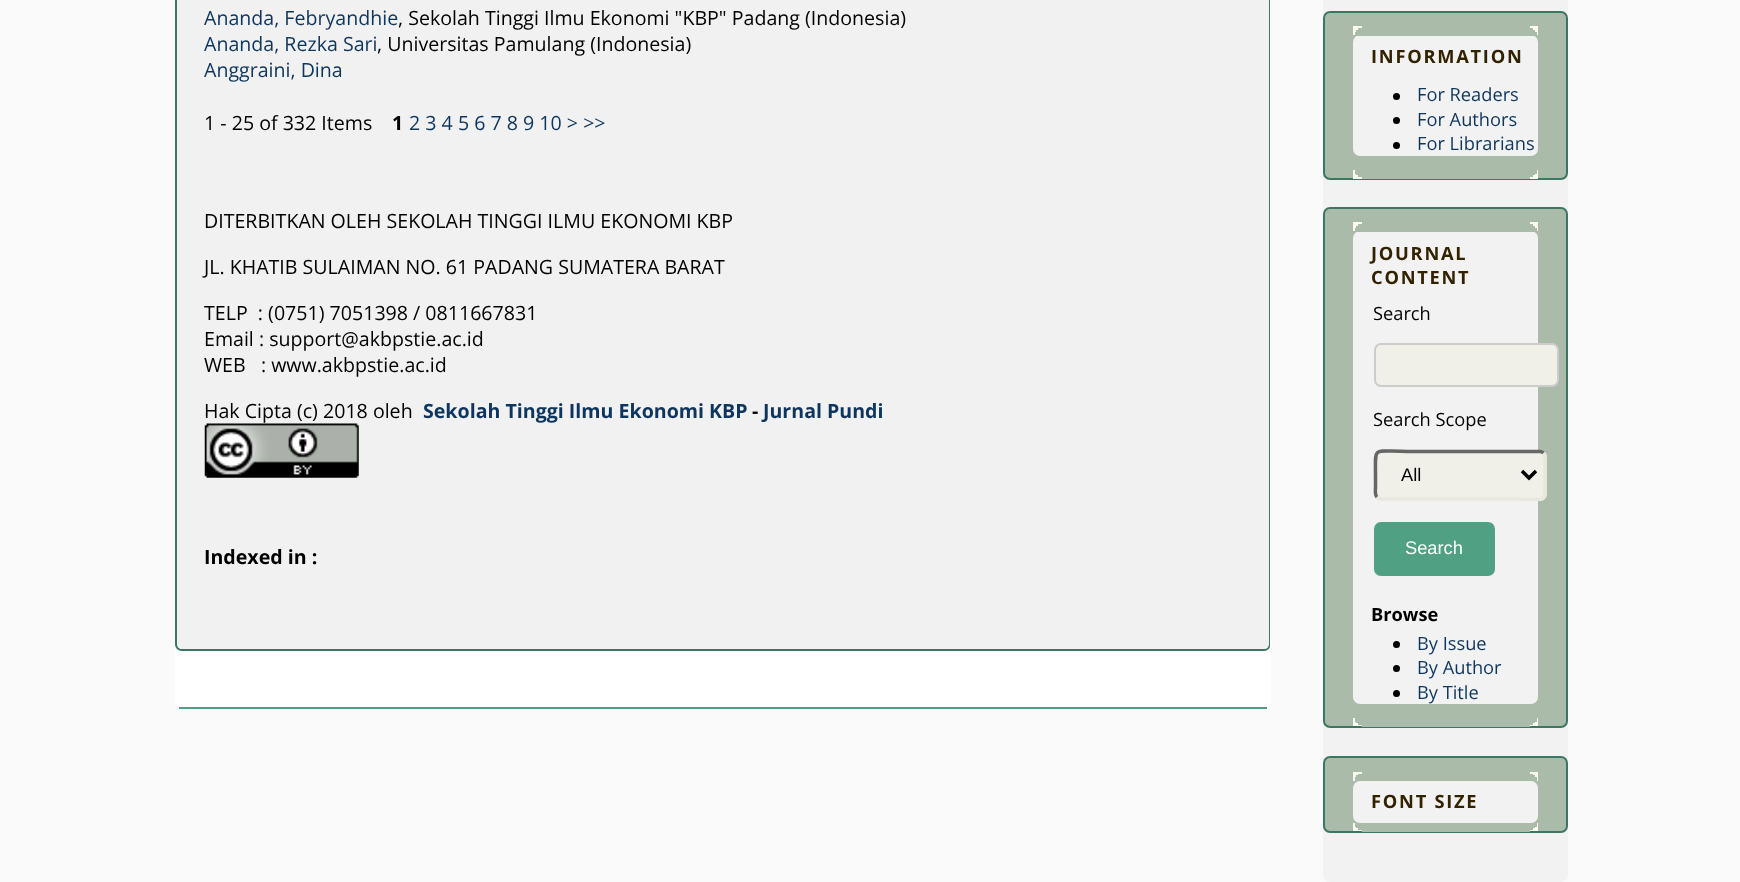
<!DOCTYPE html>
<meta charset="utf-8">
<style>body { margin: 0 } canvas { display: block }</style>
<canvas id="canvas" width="1740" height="882"></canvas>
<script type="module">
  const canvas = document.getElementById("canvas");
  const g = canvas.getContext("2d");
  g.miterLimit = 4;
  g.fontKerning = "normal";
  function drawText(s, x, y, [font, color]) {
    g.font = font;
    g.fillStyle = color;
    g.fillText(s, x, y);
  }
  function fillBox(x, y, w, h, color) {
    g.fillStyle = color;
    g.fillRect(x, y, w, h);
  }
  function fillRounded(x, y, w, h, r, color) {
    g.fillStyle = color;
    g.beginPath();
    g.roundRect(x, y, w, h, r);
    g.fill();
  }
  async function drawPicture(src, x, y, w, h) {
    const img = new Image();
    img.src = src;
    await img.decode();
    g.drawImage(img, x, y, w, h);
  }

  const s1 = ["19.6px Open Sans", "#0D355E"];
  const s2 = ["19.6px Open Sans", "#000000"];
  const s3 = ["bold 19.6px Open Sans", "#000000"];
  const s4 = ["bold 19.6px Open Sans", "#0D355E"];
  const s5 = ["bold 18.25px Open Sans", "#332200"];
  const s6 = ["18.25px Open Sans", "#0D355E"];
  const s7 = ["18.25px Open Sans", "#000000"];
  const s8 = ["18.25px Liberation Sans", "#000000"];
  const s9 = ["18.25px Liberation Sans", "#FFFFFF"];
  const s10 = ["bold 18.25px Open Sans", "#000000"];

  fillBox(0, 0, 1740, 882, "#FAFAFA");
  fillRounded(175, -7, 1096, 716, 7, "#FFFFFF");
  fillBox(179, 707, 1088, 2, "#50A083");
  g.fillStyle = "#F1F1F1";
  g.beginPath();
  g.moveTo(182, -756);
  g.bezierCurveTo(178, -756, 175, -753, 175, -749);
  g.lineTo(175, 644);
  g.bezierCurveTo(175, 648, 178, 651, 182, 651);
  g.lineTo(1264, 651);
  g.bezierCurveTo(1267, 651, 1269, 649, 1270, 647);
  g.lineTo(1270, -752);
  g.bezierCurveTo(1269, -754, 1267, -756, 1264, -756);
  g.closePath();
  g.fill();
  g.fillStyle = "#3C7861";
  g.beginPath();
  g.moveTo(182, -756);
  g.bezierCurveTo(178, -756, 175, -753, 175, -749);
  g.lineTo(175, 644);
  g.bezierCurveTo(175, 648, 178, 651, 182, 651);
  g.lineTo(1264, 651);
  g.bezierCurveTo(1267, 651, 1269, 649, 1270, 647);
  g.lineTo(1270, -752);
  g.bezierCurveTo(1269, -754, 1267, -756, 1264, -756);
  g.closePath();
  g.moveTo(182, -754);
  g.bezierCurveTo(179, -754, 177, -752, 177, -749);
  g.lineTo(177, 644);
  g.bezierCurveTo(177, 647, 179, 649, 182, 649);
  g.lineTo(1264, 649);
  g.bezierCurveTo(1267, 649, 1269, 647, 1269, 644);
  g.lineTo(1269, -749);
  g.bezierCurveTo(1269, -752, 1267, -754, 1264, -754);
  g.closePath();
  g.fill("evenodd");
  drawText("Ananda, Febryandhie", 204, 25, s1);
  drawText(", Sekolah Tinggi Ilmu Ekonomi \"KBP\" Padang (Indonesia)", 398, 25, s2);
  drawText("Ananda, Rezka Sari", 204, 51, s1);
  drawText(", Universitas Pamulang (Indonesia)", 377, 51, s2);
  drawText("Anggraini, Dina", 204, 77, s1);
  drawText("1 - 25 of 332 Items", 204, 130, s2);
  drawText("1", 392, 130, s3);
  drawText("2 3 4 5 6 7 8 9 10 > >>", 409, 130, s1);
  drawText("DITERBITKAN OLEH SEKOLAH TINGGI ILMU EKONOMI KBP", 204, 228, s2);
  drawText("JL. KHATIB SULAIMAN NO. 61 PADANG SUMATERA BARAT", 204, 274, s2);
  drawText("TELP  : (0751) 7051398 / 0811667831", 204, 320, s2);
  drawText("Email : support@akbpstie.ac.id", 204, 346, s2);
  drawText("WEB   : www.akbpstie.ac.id", 204, 372, s2);
  drawText("Hak Cipta (c) 2018 oleh", 204, 418, s2);
  drawText("Sekolah Tinggi Ilmu Ekonomi KBP", 423, 418, s4);
  drawText("-", 752, 418, s3);
  drawText("Jurnal Pundi", 763, 418, s4);
  await drawPicture("pic1.png", 204, 423, 155, 55);
  drawText("Indexed in :", 204, 564, s3);
  fillRounded(1323, -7, 245, 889, 7, "#F2F2F2");
  g.fillStyle = "#AABBAA";
  g.beginPath();
  g.roundRect(1324, 12, 243, 167, 6);
  g.fill();
  g.strokeStyle = "#3C7861";
  g.lineWidth = 2;
  g.stroke();
  fillBox(1353, 26, 185, 9, "#FBFBF3");
  fillBox(1362, 26, 168, 2, "#AABBAA");
  fillBox(1358, 28, 175, 2, "#AABBAA");
  fillBox(1356, 30, 179, 2, "#AABBAA");
  fillRounded(1353, 35, 185, 121, 7, "#F2F2F2");
  fillBox(1355, 32, 182, 4, "#AABBAA");
  g.letterSpacing = "1.75px";
  drawText("INFORMATION", 1371, 63, s5);
  g.fillStyle = "#000000";
  g.beginPath();
  g.arc(1396.5, 96.5, 3.5, 0, Math.PI * 2);
  g.fill();
  g.letterSpacing = "0px";
  drawText("For Readers", 1417, 101, s6);
  g.fillStyle = "#000000";
  g.beginPath();
  g.arc(1396.5, 120.5, 3.5, 0, Math.PI * 2);
  g.fill();
  drawText("For Authors", 1417, 126, s6);
  g.fillStyle = "#000000";
  g.beginPath();
  g.arc(1396.5, 145.5, 3.5, 0, Math.PI * 2);
  g.fill();
  drawText("For Librarians", 1417, 150, s6);
  fillBox(1353, 170, 185, 9, "#FBFBF3");
  fillBox(1355, 170, 182, 4, "#AABBAA");
  fillBox(1356, 174, 179, 1, "#AABBAA");
  fillBox(1358, 175, 175, 2, "#AABBAA");
  fillBox(1362, 177, 168, 2, "#AABBAA");
  g.beginPath();
  g.roundRect(1324, 208, 243, 519, 6);
  g.fill();
  g.stroke();
  fillBox(1353, 222, 185, 9, "#FBFBF3");
  fillBox(1362, 222, 168, 2, "#AABBAA");
  fillBox(1358, 224, 175, 2, "#AABBAA");
  fillBox(1356, 226, 179, 2, "#AABBAA");
  fillRounded(1353, 231, 185, 473, 7, "#F2F2F2");
  fillBox(1355, 228, 182, 4, "#AABBAA");
  g.letterSpacing = "1.75px";
  drawText("JOURNAL", 1371, 260, s5);
  drawText("CONTENT", 1371, 284, s5);
  g.letterSpacing = "0px";
  drawText("Search", 1373, 320, s7);
  g.fillStyle = "#F0F0E8";
  g.beginPath();
  g.roundRect(1375, 344, 183, 42, 6);
  g.fill();
  g.strokeStyle = "#CCCCCC";
  g.stroke();
  drawText("Search Scope", 1373, 426, s7);
  fillRounded(1374, 450, 173, 51, 7, "#F0F0E8");
  g.beginPath();
  g.moveTo(1543.5, 453);
  g.bezierCurveTo(1546, 455.5, 1545, 460, 1545, 463);
  g.lineTo(1545, 475);
  g.bezierCurveTo(1545, 505.5, 1548.5, 499, 1513.5, 499);
  g.lineTo(1381, 499);
  g.bezierCurveTo(1379.5, 498.5, 1378, 498, 1377, 497);
  g.strokeStyle = "#E8E8E1";
  g.lineWidth = 3.5;
  g.stroke();
  g.beginPath();
  g.moveTo(1377, 497);
  g.bezierCurveTo(1374.5, 494.5, 1375.5, 490.5, 1375.5, 487.5);
  g.lineTo(1375.5, 475);
  g.bezierCurveTo(1375.5, 445, 1372, 451.5, 1407.5, 451.5);
  g.lineTo(1540, 451.5);
  g.bezierCurveTo(1541.5, 451.5, 1542.5, 452, 1543.5, 453);
  g.strokeStyle = "#666666";
  g.stroke();
  g.beginPath();
  g.moveTo(1522, 471);
  g.lineTo(1529, 478);
  g.lineTo(1536, 471);
  g.strokeStyle = "#000000";
  g.stroke();
  drawText("All", 1401, 481, s8);
  fillRounded(1374, 522, 121, 54, 7, "#50A083");
  drawText("Search", 1405, 554, s9);
  drawText("Browse", 1371, 621, s10);
  g.beginPath();
  g.arc(1396.5, 644.5, 3.5, 0, Math.PI * 2);
  g.fill();
  drawText("By Issue", 1417, 650, s6);
  g.fillStyle = "#000000";
  g.beginPath();
  g.arc(1396.5, 668.5, 3.5, 0, Math.PI * 2);
  g.fill();
  drawText("By Author", 1417, 674, s6);
  g.fillStyle = "#000000";
  g.beginPath();
  g.arc(1396.5, 693.5, 3.5, 0, Math.PI * 2);
  g.fill();
  drawText("By Title", 1417, 699, s6);
  fillBox(1353, 718, 185, 8, "#FBFBF3");
  fillBox(1355, 718, 182, 4, "#AABBAA");
  fillBox(1356, 722, 179, 1, "#AABBAA");
  fillBox(1358, 723, 175, 2, "#AABBAA");
  fillBox(1362, 725, 168, 2, "#AABBAA");
  g.beginPath();
  g.roundRect(1324, 757, 243, 75, 6);
  g.fill();
  g.strokeStyle = "#3C7861";
  g.lineWidth = 2;
  g.stroke();
  fillBox(1353, 772, 185, 9, "#FBFBF3");
  fillBox(1362, 772, 168, 2, "#AABBAA");
  fillBox(1358, 774, 175, 1, "#AABBAA");
  fillBox(1356, 775, 179, 2, "#AABBAA");
  fillBox(1355, 777, 182, 4, "#AABBAA");
  fillRounded(1353, 781, 185, 42, 7, "#F2F2F2");
  g.letterSpacing = "1.75px";
  drawText("FONT SIZE", 1371, 808, s5);
  fillBox(1353, 823, 185, 8, "#FBFBF3");
  fillBox(1355, 823, 182, 4, "#AABBAA");
  fillBox(1356, 827, 179, 1, "#AABBAA");
  fillBox(1358, 828, 175, 2, "#AABBAA");
  fillBox(1362, 830, 168, 2, "#AABBAA");
</script>
